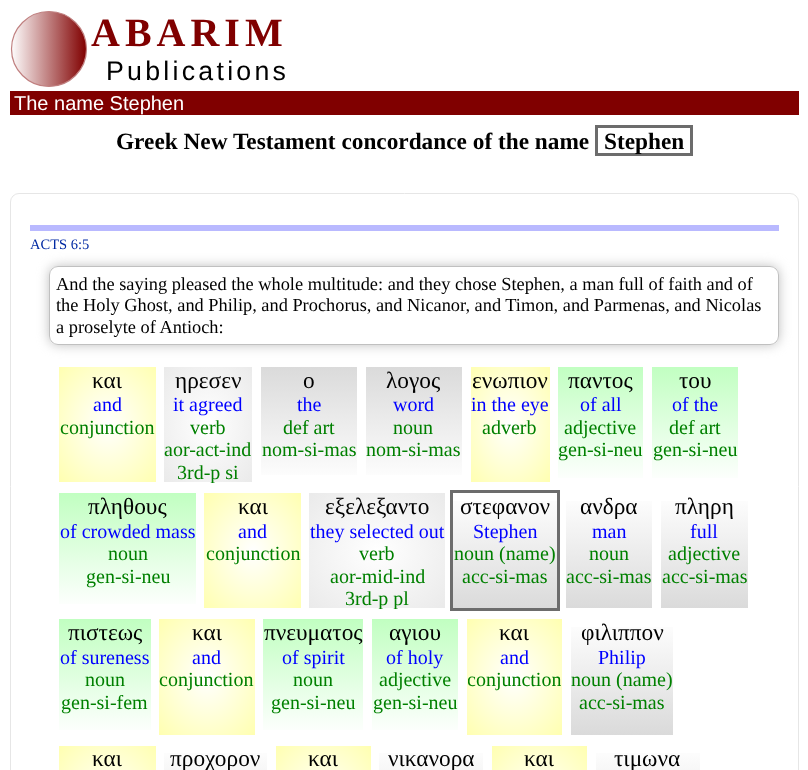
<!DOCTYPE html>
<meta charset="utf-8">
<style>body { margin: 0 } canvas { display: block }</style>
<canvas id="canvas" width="808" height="770"></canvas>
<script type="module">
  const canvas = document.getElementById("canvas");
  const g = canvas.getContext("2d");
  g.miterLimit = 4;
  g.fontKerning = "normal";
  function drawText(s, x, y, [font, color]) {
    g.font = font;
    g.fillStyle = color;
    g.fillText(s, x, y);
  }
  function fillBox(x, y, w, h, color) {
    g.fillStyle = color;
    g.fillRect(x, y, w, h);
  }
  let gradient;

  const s1 = ["bold 40px Liberation Serif", "#800000"];
  const s2 = ["26.75px Liberation Sans", "#000000"];
  const s3 = ["20px Liberation Sans", "#FFFFFF"];
  const s4 = ["bold 23.3px Liberation Serif", "#000000"];
  const s5 = ["14.5px Liberation Serif", "#0029A3"];
  const s6 = ["18.35px Liberation Serif", "#000000"];
  const s7 = ["23.3px Liberation Serif", "#000000"];
  const s8 = ["20px Liberation Serif", "#0000FF"];
  const s9 = ["20px Liberation Serif", "#008000"];

  fillBox(0, 0, 808, 770, "#FFFFFF");
  gradient = g.createLinearGradient(11, 11, 86, 11);
  gradient.addColorStop(0, "#FFFFFF");
  gradient.addColorStop(1, "#800000");
  g.fillStyle = gradient;
  g.beginPath();
  g.arc(49, 49, 37.5, 0, Math.PI * 2);
  g.fill();
  g.strokeStyle = "#C08080";
  g.lineWidth = 1.2;
  g.stroke();
  g.letterSpacing = "5px";
  drawText("ABARIM", 91, 46, s1);
  g.letterSpacing = "3.25px";
  drawText("Publications", 106, 80, s2);
  fillBox(10, 91, 789, 24, "#800000");
  g.letterSpacing = "0px";
  drawText("The name Stephen", 14, 110, s3);
  drawText("Greek New Testament concordance of the name", 116, 149, s4);
  g.strokeStyle = "#6C6C6C";
  g.lineWidth = 3;
  g.strokeRect(596.5, 126.5, 95, 28);
  drawText("Stephen", 604, 149, s4);
  g.beginPath();
  g.roundRect(10.5, 193.5, 788, 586, 8.5);
  g.strokeStyle = "#E6E6E6";
  g.lineWidth = 1;
  g.stroke();
  fillBox(30, 225, 749, 6, "#B9B9FF");
  drawText("ACTS 6:5", 30, 249, s5);
  g.save();
  g.beginPath();
  g.moveTo(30, 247);
  g.lineTo(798, 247);
  g.lineTo(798, 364);
  g.lineTo(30, 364);
  g.closePath();
  g.moveTo(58, 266);
  g.lineTo(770, 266);
  g.bezierCurveTo(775, 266, 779, 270, 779, 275);
  g.lineTo(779, 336);
  g.bezierCurveTo(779, 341, 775, 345, 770, 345);
  g.lineTo(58, 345);
  g.bezierCurveTo(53, 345, 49, 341, 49, 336);
  g.lineTo(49, 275);
  g.bezierCurveTo(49, 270, 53, 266, 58, 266);
  g.closePath();
  g.clip("evenodd");
  g.fillStyle = "#C0C0C0";
  g.filter = "blur(6px)";
  g.beginPath();
  g.roundRect(49, 266, 730, 79, 9);
  g.fill();
  g.filter = "none";
  g.restore();
  g.beginPath();
  g.roundRect(49.5, 266.5, 729, 78, 8.5);
  g.strokeStyle = "#C0C0C0";
  g.stroke();
  drawText("And the saying pleased the whole multitude: and they chose Stephen, a man full of faith and of", 56, 290, s6);
  drawText("the Holy Ghost, and Philip, and Prochorus, and Nicanor, and Timon, and Parmenas, and Nicolas", 56, 311, s6);
  drawText("a proselyte of Antioch:", 56, 333, s6);
  gradient = g.createRadialGradient(108, 356.78, 0, 108, 356.78, 69);
  gradient.addColorStop(0, "#FFFFFF");
  gradient.addColorStop(1, "#FFFFB0");
  g.fillStyle = gradient;
  g.beginPath();
  g.rect(59, 367, 97, 115);
  g.save();
  g.clip();
  g.scale(1, 82 / 69);
  g.fillRect(0, 0, 808, 648);
  g.restore();
  drawText("και", 92, 388, s7);
  drawText("and", 93, 411, s8);
  drawText("conjunction", 60, 434, s9);
  gradient = g.createRadialGradient(208, 325.76, 0, 208, 325.76, 63);
  gradient.addColorStop(0, "#FFFFFF");
  gradient.addColorStop(1, "#EAEAEA");
  g.fillStyle = gradient;
  g.beginPath();
  g.rect(164, 367, 88, 115);
  g.save();
  g.clip();
  g.scale(1, 82 / 63);
  g.fillRect(0, 0, 808, 592);
  g.restore();
  drawText("ηρεσεν", 175, 388, s7);
  drawText("it agreed", 173, 411, s8);
  drawText("verb", 190, 434, s9);
  drawText("aor-act-ind", 164, 456, s9);
  g.save();
  g.beginPath();
  g.rect(165, 416, 86, 67);
  g.clip();
  drawText("3rd-p si", 177, 479, s9);
  g.restore();
  gradient = g.createLinearGradient(309, 366, 309, 483);
  gradient.addColorStop(0, "#DADADA");
  gradient.addColorStop(1, "#FFFFFF");
  g.fillStyle = gradient;
  g.fillRect(261, 367, 96, 108);
  drawText("ο", 303, 388, s7);
  drawText("the", 297, 411, s8);
  drawText("def art", 283, 434, s9);
  drawText("nom-si-mas", 262, 456, s9);
  gradient = g.createLinearGradient(414, 366, 414, 483);
  gradient.addColorStop(0, "#DADADA");
  gradient.addColorStop(1, "#FFFFFF");
  g.fillStyle = gradient;
  g.fillRect(366, 367, 96, 108);
  drawText("λογος", 386, 388, s7);
  drawText("word", 393, 411, s8);
  drawText("noun", 393, 434, s9);
  drawText("nom-si-mas", 366, 456, s9);
  gradient = g.createRadialGradient(510, 294.73, 0, 510, 294.73, 57);
  gradient.addColorStop(0, "#FFFFFF");
  gradient.addColorStop(1, "#FFFFB0");
  g.fillStyle = gradient;
  g.beginPath();
  g.rect(471, 367, 79, 115);
  g.save();
  g.clip();
  g.scale(1, 82 / 57);
  g.fillRect(0, 0, 808, 536);
  g.restore();
  drawText("ενωπιον", 472, 388, s7);
  drawText("in the eye", 471, 411, s8);
  drawText("adverb", 482, 434, s9);
  gradient = g.createLinearGradient(601, 366, 601, 483);
  gradient.addColorStop(0, "#C1FFC1");
  gradient.addColorStop(1, "#FFFFFF");
  g.fillStyle = gradient;
  g.fillRect(558, 367, 85, 111);
  drawText("παντος", 568, 388, s7);
  drawText("of all", 580, 411, s8);
  drawText("adjective", 564, 434, s9);
  drawText("gen-si-neu", 558, 456, s9);
  gradient = g.createLinearGradient(695, 366, 695, 483);
  gradient.addColorStop(0, "#C1FFC1");
  gradient.addColorStop(1, "#FFFFFF");
  g.fillStyle = gradient;
  g.fillRect(652, 367, 86, 111);
  drawText("του", 679, 388, s7);
  drawText("of the", 672, 411, s8);
  drawText("def art", 669, 434, s9);
  drawText("gen-si-neu", 653, 456, s9);
  gradient = g.createLinearGradient(128, 493, 128, 609);
  gradient.addColorStop(0, "#C1FFC1");
  gradient.addColorStop(1, "#FFFFFF");
  g.fillStyle = gradient;
  g.fillRect(59, 493, 137, 111);
  drawText("πληθους", 88, 514, s7);
  drawText("of crowded mass", 60, 538, s8);
  drawText("noun", 108, 560, s9);
  drawText("gen-si-neu", 86, 583, s9);
  gradient = g.createRadialGradient(253, 463.65, 0, 253, 463.65, 69);
  gradient.addColorStop(0, "#FFFFFF");
  gradient.addColorStop(1, "#FFFFB0");
  g.fillStyle = gradient;
  g.beginPath();
  g.rect(204, 493, 97, 115);
  g.save();
  g.clip();
  g.scale(1, 82 / 69);
  g.fillRect(0, 0, 808, 648);
  g.restore();
  drawText("και", 238, 514, s7);
  drawText("and", 238, 538, s8);
  drawText("conjunction", 206, 560, s9);
  gradient = g.createRadialGradient(377, 645.07, 0, 377, 645.07, 96);
  gradient.addColorStop(0, "#FFFFFF");
  gradient.addColorStop(1, "#EAEAEA");
  g.fillStyle = gradient;
  g.beginPath();
  g.rect(309, 493, 136, 115);
  g.save();
  g.clip();
  g.scale(1, 82 / 96);
  g.fillRect(0, 0, 808, 902);
  g.restore();
  drawText("εξελεξαντο", 325, 514, s7);
  drawText("they selected out", 310, 538, s8);
  drawText("verb", 359, 560, s9);
  drawText("aor-mid-ind", 330, 583, s9);
  g.save();
  g.beginPath();
  g.rect(310, 543, 134, 66);
  g.clip();
  drawText("3rd-p pl", 345, 605, s9);
  g.restore();
  gradient = g.createLinearGradient(505, 493, 505, 609);
  gradient.addColorStop(0, "#FFFFFF");
  gradient.addColorStop(1, "#DADADA");
  g.fillStyle = gradient;
  g.fillRect(453, 501, 104, 107);
  g.strokeStyle = "#6C6C6C";
  g.lineWidth = 3;
  g.strokeRect(451.5, 491.5, 107, 118);
  drawText("στεφανον", 460, 514, s7);
  drawText("Stephen", 473, 538, s8);
  drawText("noun (name)", 454, 560, s9);
  drawText("acc-si-mas", 462, 583, s9);
  gradient = g.createLinearGradient(609, 493, 609, 609);
  gradient.addColorStop(0, "#FFFFFF");
  gradient.addColorStop(1, "#DADADA");
  g.fillStyle = gradient;
  g.fillRect(566, 501, 86, 107);
  drawText("ανδρα", 580, 514, s7);
  drawText("man", 592, 538, s8);
  drawText("noun", 589, 560, s9);
  drawText("acc-si-mas", 566, 583, s9);
  gradient = g.createLinearGradient(704, 493, 704, 609);
  gradient.addColorStop(0, "#FFFFFF");
  gradient.addColorStop(1, "#DADADA");
  g.fillStyle = gradient;
  g.fillRect(661, 501, 87, 107);
  drawText("πληρη", 675, 514, s7);
  drawText("full", 690, 538, s8);
  drawText("adjective", 668, 560, s9);
  drawText("acc-si-mas", 662, 583, s9);
  gradient = g.createLinearGradient(105, 619, 105, 735);
  gradient.addColorStop(0, "#C1FFC1");
  gradient.addColorStop(1, "#FFFFFF");
  g.fillStyle = gradient;
  g.fillRect(59, 619, 92, 111);
  drawText("πιστεως", 68, 640, s7);
  drawText("of sureness", 60, 664, s8);
  drawText("noun", 85, 686, s9);
  drawText("gen-si-fem", 61, 709, s9);
  gradient = g.createRadialGradient(207, 561.41, 0, 207, 561.41, 68);
  gradient.addColorStop(0, "#FFFFFF");
  gradient.addColorStop(1, "#FFFFB0");
  g.fillStyle = gradient;
  g.beginPath();
  g.rect(159, 619, 96, 116);
  g.save();
  g.clip();
  g.scale(1, 82 / 68);
  g.fillRect(0, 0, 808, 639);
  g.restore();
  drawText("και", 192, 640, s7);
  drawText("and", 192, 664, s8);
  drawText("conjunction", 159, 686, s9);
  gradient = g.createLinearGradient(313, 619, 313, 735);
  gradient.addColorStop(0, "#C1FFC1");
  gradient.addColorStop(1, "#FFFFFF");
  g.fillStyle = gradient;
  g.fillRect(263, 619, 100, 111);
  drawText("πνευματος", 264, 640, s7);
  drawText("of spirit", 282, 664, s8);
  drawText("noun", 293, 686, s9);
  drawText("gen-si-neu", 271, 709, s9);
  gradient = g.createLinearGradient(415, 619, 415, 735);
  gradient.addColorStop(0, "#C1FFC1");
  gradient.addColorStop(1, "#FFFFFF");
  g.fillStyle = gradient;
  g.fillRect(372, 619, 86, 111);
  drawText("αγιου", 389, 640, s7);
  drawText("of holy", 386, 664, s8);
  drawText("adjective", 379, 686, s9);
  drawText("gen-si-neu", 373, 709, s9);
  gradient = g.createRadialGradient(514, 561.41, 0, 514, 561.41, 68);
  gradient.addColorStop(0, "#FFFFFF");
  gradient.addColorStop(1, "#FFFFB0");
  g.fillStyle = gradient;
  g.beginPath();
  g.rect(467, 619, 95, 116);
  g.save();
  g.clip();
  g.scale(1, 82 / 68);
  g.fillRect(0, 0, 808, 639);
  g.restore();
  drawText("και", 499, 640, s7);
  drawText("and", 500, 664, s8);
  g.save();
  g.beginPath();
  g.rect(468, 669, 93, 22);
  g.clip();
  drawText("conjunction", 467, 686, s9);
  g.restore();
  gradient = g.createLinearGradient(622, 619, 622, 735);
  gradient.addColorStop(0, "#FFFFFF");
  gradient.addColorStop(1, "#DADADA");
  g.fillStyle = gradient;
  g.fillRect(571, 627, 102, 108);
  drawText("φιλιππον", 581, 640, s7);
  drawText("Philip", 598, 664, s8);
  drawText("noun (name)", 571, 686, s9);
  drawText("acc-si-mas", 579, 709, s9);
  gradient = g.createRadialGradient(108, 675.7, 0, 108, 675.7, 69);
  gradient.addColorStop(0, "#FFFFFF");
  gradient.addColorStop(1, "#FFFFB0");
  g.fillStyle = gradient;
  g.beginPath();
  g.rect(59, 746, 97, 24);
  g.save();
  g.clip();
  g.scale(1, 82 / 69);
  g.fillRect(0, 0, 808, 648);
  g.restore();
  drawText("και", 92, 766, s7);
  gradient = g.createLinearGradient(216, 745, 216, 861);
  gradient.addColorStop(0, "#FFFFFF");
  gradient.addColorStop(1, "#DADADA");
  g.fillStyle = gradient;
  g.fillRect(164, 753, 103, 17);
  drawText("προχορον", 170, 766, s7);
  gradient = g.createRadialGradient(323, 665.9, 0, 323, 665.9, 68);
  gradient.addColorStop(0, "#FFFFFF");
  gradient.addColorStop(1, "#FFFFB0");
  g.fillStyle = gradient;
  g.beginPath();
  g.rect(276, 746, 95, 24);
  g.save();
  g.clip();
  g.scale(1, 82 / 68);
  g.fillRect(0, 0, 808, 639);
  g.restore();
  drawText("και", 308, 766, s7);
  gradient = g.createLinearGradient(431, 745, 431, 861);
  gradient.addColorStop(0, "#FFFFFF");
  gradient.addColorStop(1, "#DADADA");
  g.fillStyle = gradient;
  g.fillRect(379, 753, 104, 17);
  drawText("νικανορα", 388, 766, s7);
  gradient = g.createRadialGradient(539, 665.9, 0, 539, 665.9, 68);
  gradient.addColorStop(0, "#FFFFFF");
  gradient.addColorStop(1, "#FFFFB0");
  g.fillStyle = gradient;
  g.beginPath();
  g.rect(492, 746, 95, 24);
  g.save();
  g.clip();
  g.scale(1, 82 / 68);
  g.fillRect(0, 0, 808, 639);
  g.restore();
  drawText("και", 524, 766, s7);
  gradient = g.createLinearGradient(648, 745, 648, 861);
  gradient.addColorStop(0, "#FFFFFF");
  gradient.addColorStop(1, "#DADADA");
  g.fillStyle = gradient;
  g.fillRect(596, 753, 104, 17);
  drawText("τιμωνα", 614, 766, s7);
</script>
